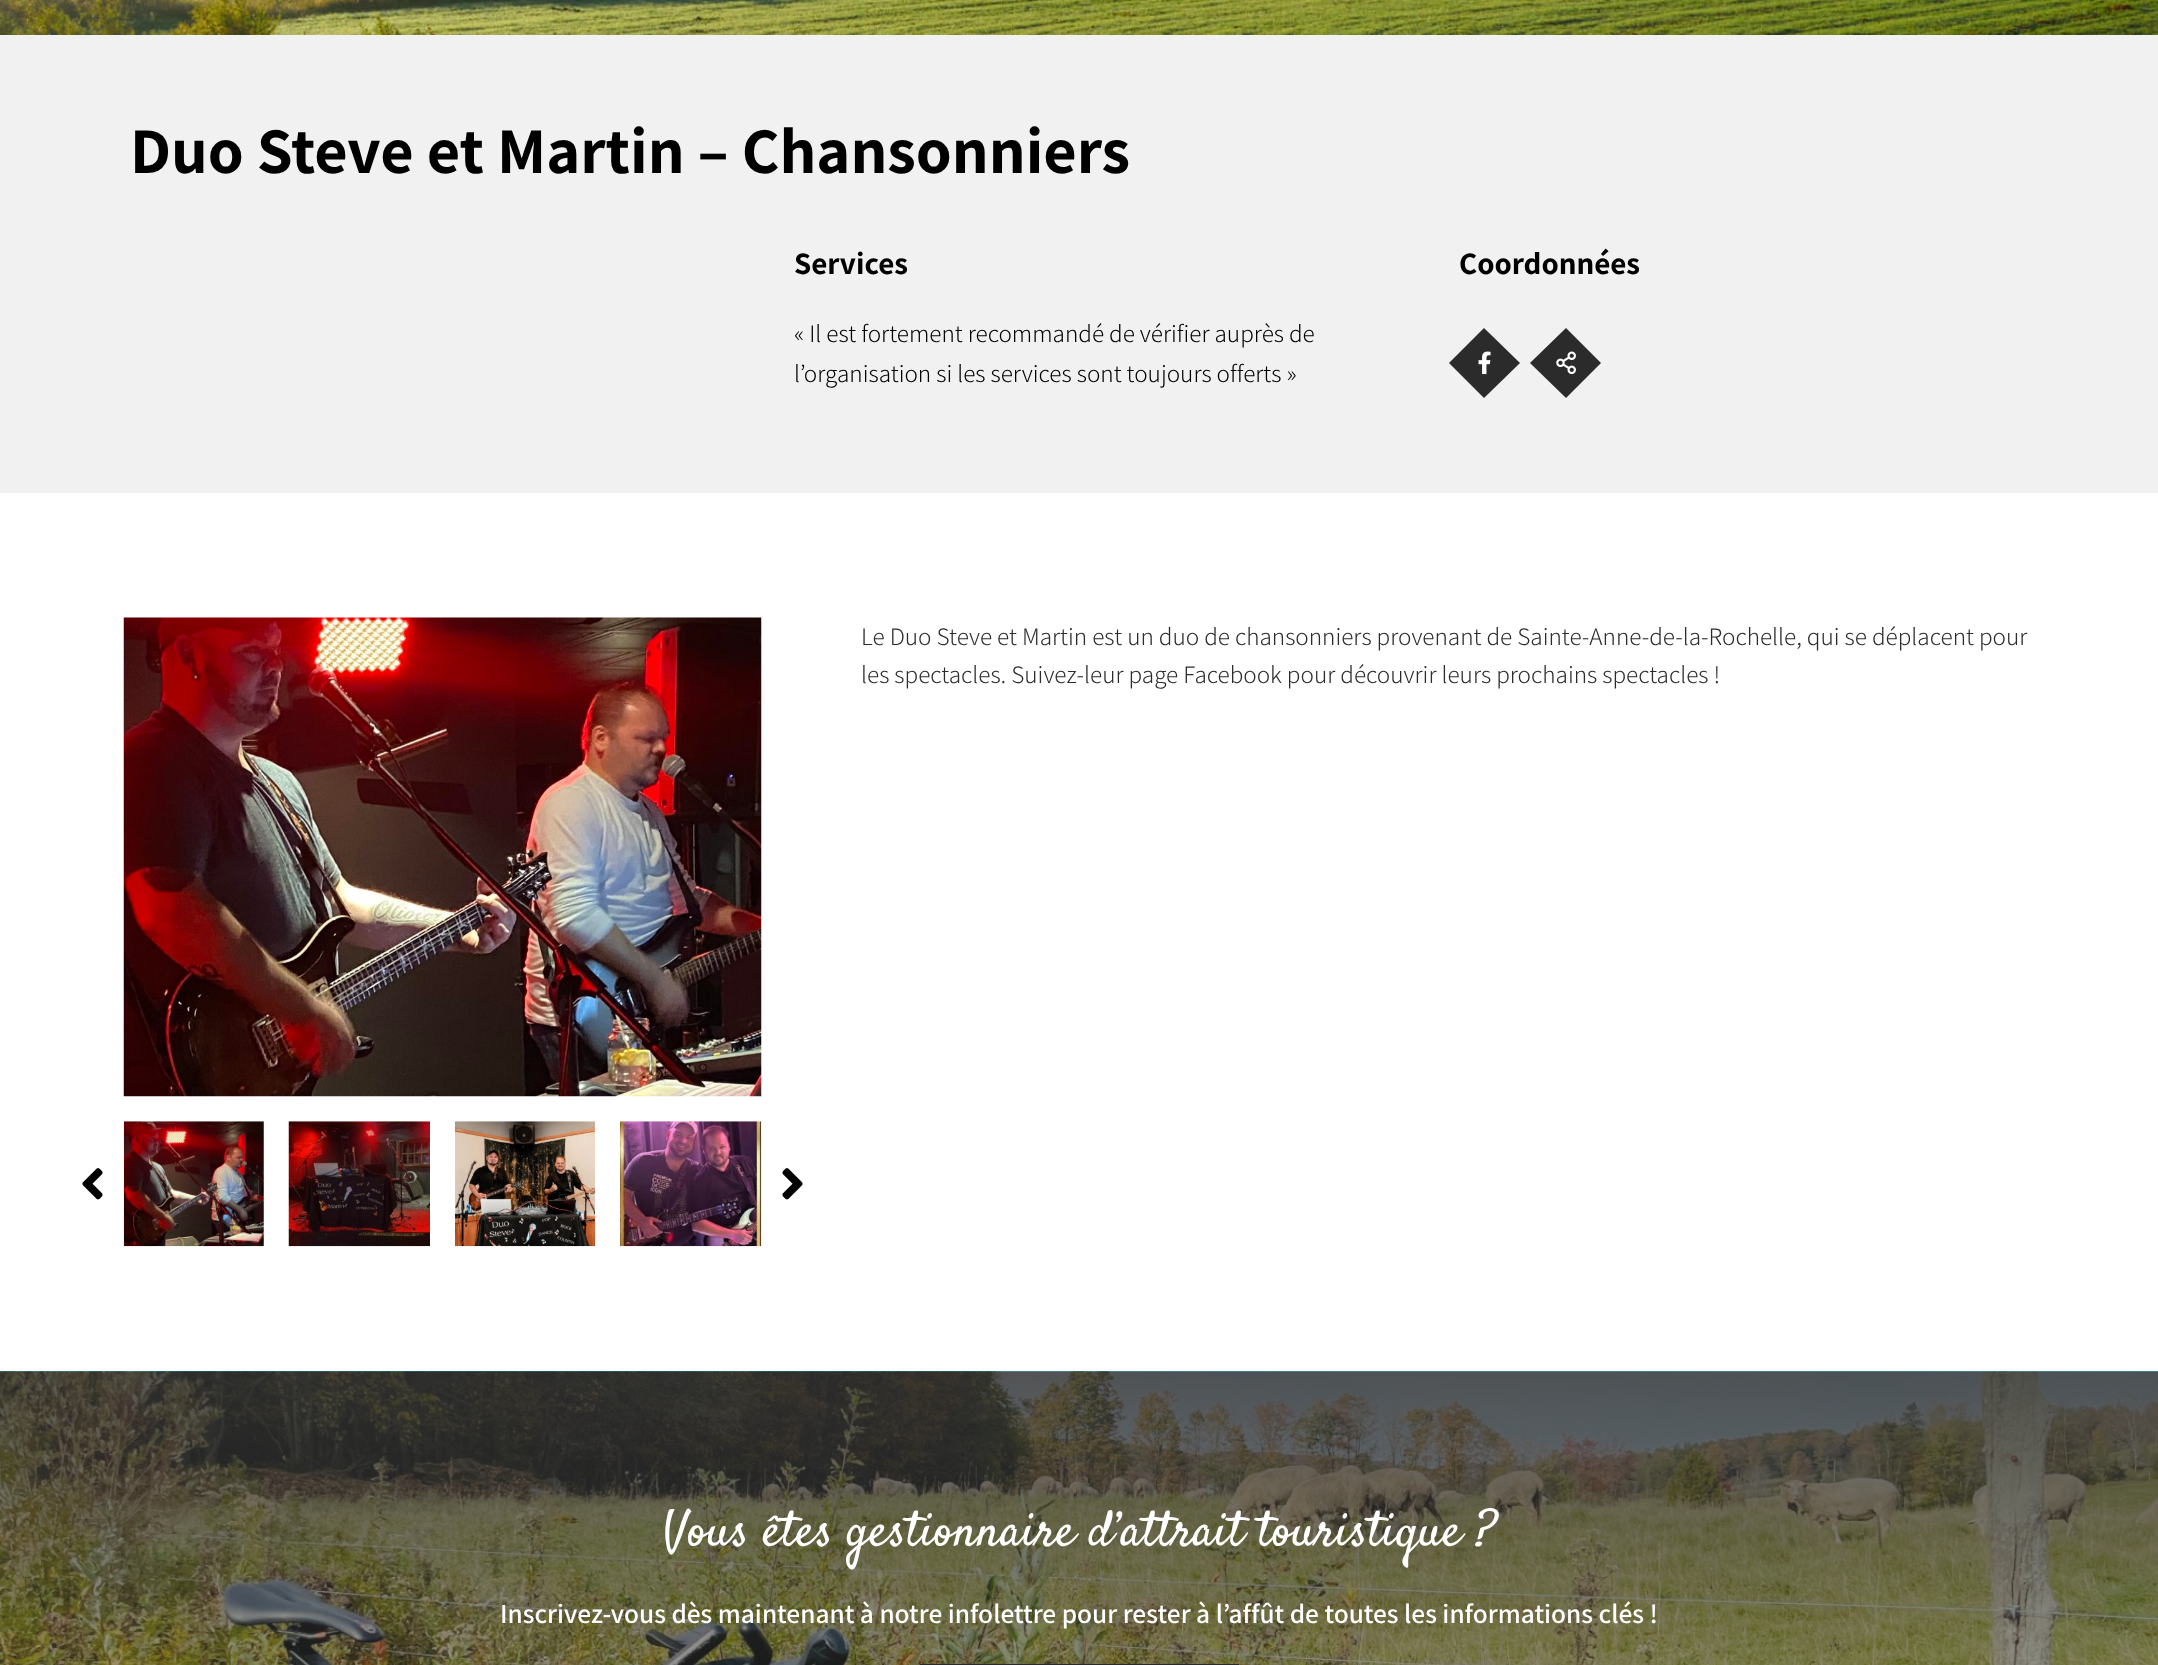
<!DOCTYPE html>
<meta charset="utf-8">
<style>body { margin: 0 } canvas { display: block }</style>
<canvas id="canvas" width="2158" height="1665"></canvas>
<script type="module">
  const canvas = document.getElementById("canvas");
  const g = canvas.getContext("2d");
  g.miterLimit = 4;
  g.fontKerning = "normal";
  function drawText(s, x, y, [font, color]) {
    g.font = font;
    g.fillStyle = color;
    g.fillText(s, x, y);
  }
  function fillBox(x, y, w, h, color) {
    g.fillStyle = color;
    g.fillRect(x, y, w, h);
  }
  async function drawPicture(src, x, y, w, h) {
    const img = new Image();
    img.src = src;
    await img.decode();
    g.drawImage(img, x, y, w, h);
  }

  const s1 = ["bold 65px Assistant", "#000000"];
  const s2 = ["bold 31.25px Assistant", "#000000"];
  const s3 = ["300 25px Assistant", "#000000"];
  const s4 = ["300 25px Assistant", "#2B2B2B"];
  const s5 = ["50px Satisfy", "#FFFFFF"];
  const s6 = ["600 27.5px Assistant", "#FFFFFF"];

  fillBox(0, 0, 2158, 1665, "#FFFFFF");
  await drawPicture("pic1.png", 0, 0, 2158, 35);
  fillBox(0, 35, 2158, 458, "#F1F1F1");
  drawText("Duo Steve et Martin – Chansonniers", 130, 173, s1);
  drawText("Services", 794, 274, s2);
  drawText("« Il est fortement recommandé de vérifier auprès de", 794, 342, s3);
  drawText("l’organisation si les services sont toujours offerts »", 794, 382, s3);
  drawText("Coordonnées", 1459, 274, s2);
  g.fillStyle = "#2B2B2B";
  g.beginPath();
  g.moveTo(1484, 328);
  g.lineTo(1520, 363);
  g.lineTo(1484, 398);
  g.lineTo(1449, 363);
  g.closePath();
  g.fill();
  await drawPicture("pic2.png", 1478, 351, 13, 24);
  g.beginPath();
  g.moveTo(1566, 328);
  g.lineTo(1601, 363);
  g.lineTo(1566, 398);
  g.lineTo(1530, 363);
  g.closePath();
  g.fill();
  await drawPicture("pic3.png", 1556, 351, 20, 24);
  await drawPicture("pic4.png", 123, 617, 639, 480);
  await drawPicture("pic5.png", 82, 1168, 21, 32);
  await drawPicture("pic6.png", 123, 1121, 141, 126);
  await drawPicture("pic7.png", 288, 1121, 142, 126);
  await drawPicture("pic8.png", 455, 1121, 140, 126);
  await drawPicture("pic9.png", 620, 1121, 142, 126);
  await drawPicture("pic10.png", 782, 1168, 21, 32);
  drawText("Le Duo Steve et Martin est un duo de chansonniers provenant de Sainte-Anne-de-la-Rochelle, qui se déplacent pour", 861, 645, s4);
  drawText("les spectacles. Suivez-leur page Facebook pour découvrir leurs prochains spectacles !", 861, 683, s4);
  fillBox(0, 1371, 2158, 1, "#00ABBF");
  await drawPicture("pic11.png", 0, 1371, 2158, 294);
  drawText("Vous êtes gestionnaire d’attrait touristique ?", 663, 1545, s5);
  drawText("Inscrivez-vous dès maintenant à notre infolettre pour rester à l’affût de toutes les informations clés !", 500, 1623, s6);
  fillBox(920, 1664, 319, 1, "#2B2B2B");
</script>
